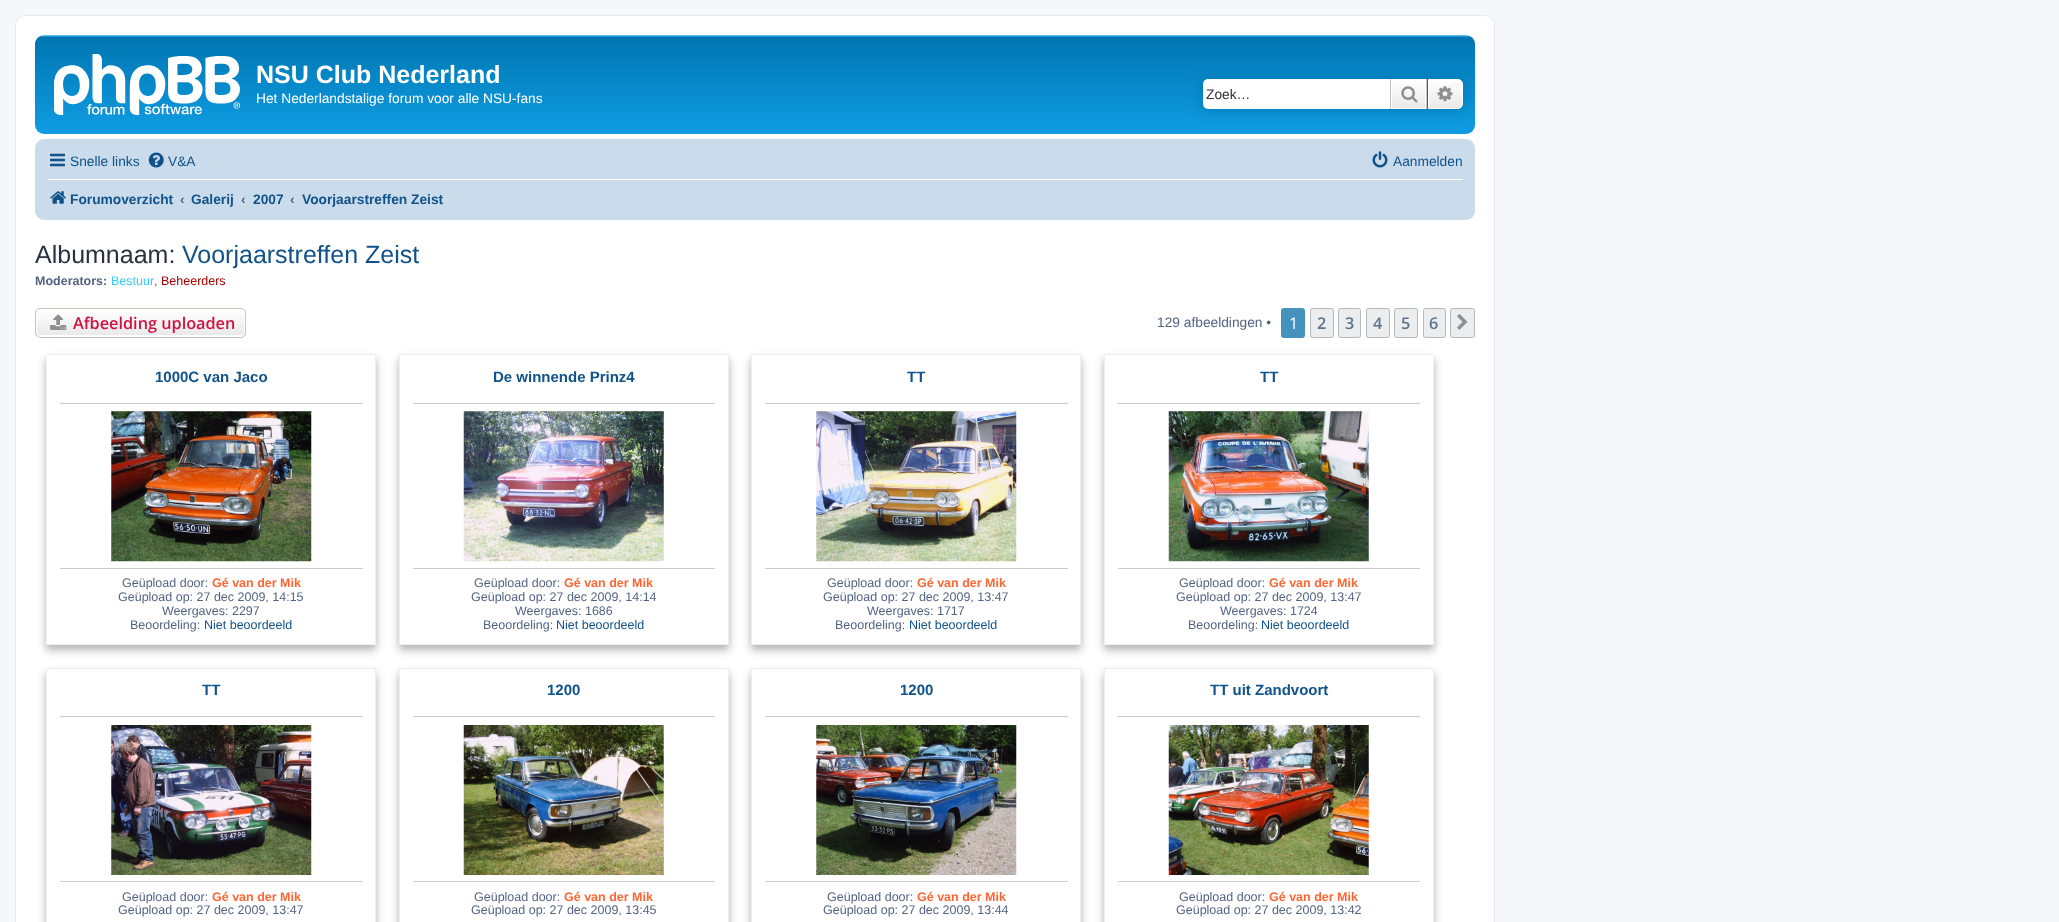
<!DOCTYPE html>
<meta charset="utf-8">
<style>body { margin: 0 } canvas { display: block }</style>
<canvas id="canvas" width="2059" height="922"></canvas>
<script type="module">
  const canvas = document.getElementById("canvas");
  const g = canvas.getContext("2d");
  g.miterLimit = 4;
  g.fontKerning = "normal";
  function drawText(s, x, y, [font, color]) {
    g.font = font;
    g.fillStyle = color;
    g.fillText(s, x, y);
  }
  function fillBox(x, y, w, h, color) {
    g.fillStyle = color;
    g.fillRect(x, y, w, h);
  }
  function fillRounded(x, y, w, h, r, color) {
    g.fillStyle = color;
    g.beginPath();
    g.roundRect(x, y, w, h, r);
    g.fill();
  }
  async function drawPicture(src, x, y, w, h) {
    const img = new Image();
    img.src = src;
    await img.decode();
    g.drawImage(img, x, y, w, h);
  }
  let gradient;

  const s1 = ["bold 25px Liberation Sans", "#FFFFFF"];
  const s2 = ["13.75px Liberation Sans", "#FFFFFF"];
  const s3 = ["13.75px Liberation Sans", "#333333"];
  const s4 = ["13.75px Liberation Sans", "#105289"];
  const s5 = ["bold 13.75px Liberation Sans", "#105289"];
  const s6 = ["bold 13.75px Liberation Sans", "#536482"];
  const s7 = ["25px Liberation Sans", "#28313F"];
  const s8 = ["25px Liberation Sans", "#105289"];
  const s9 = ["bold 12.5px Liberation Sans", "#536482"];
  const s10 = ["12.5px Liberation Sans", "#33CCFF"];
  const s11 = ["12.5px Liberation Sans", "#536482"];
  const s12 = ["12.5px Liberation Sans", "#AA0000"];
  const s13 = ["600 16.25px Open Sans", "#D31141"];
  const s14 = ["13.75px Liberation Sans", "#536482"];
  const s15 = ["16.25px Open Sans", "#FFFFFF"];
  const s16 = ["600 16.25px Open Sans", "#5C758C"];
  const s17 = ["bold 15px Liberation Sans", "#105289"];
  const s18 = ["bold 12.5px Liberation Sans", "#FF6633"];
  const s19 = ["12.5px Liberation Sans", "#105289"];

  fillBox(0, 0, 2059, 922, "#F5F7FA");
  g.fillStyle = "#FFFFFF";
  g.beginPath();
  g.roundRect(15.5, 15.5, 1479, 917, 9.5);
  g.fill();
  g.strokeStyle = "#E6E9ED";
  g.stroke();
  gradient = g.createLinearGradient(755, 35, 755, 150);
  gradient.addColorStop(0, "#6ACEFF");
  gradient.addColorStop(0.02, "#0076B1");
  gradient.addColorStop(1, "#12A3EB");
  g.fillStyle = gradient;
  g.beginPath();
  g.roundRect(35, 35, 1440, 99, 9);
  g.fill();
  await drawPicture("pic1.png", 54, 54, 186, 61);
  drawText("NSU Club Nederland", 256, 83, s1);
  drawText("Het Nederlandstalige forum voor alle NSU-fans", 256, 103, s2);
  g.fillStyle = "#0075B0";
  g.filter = "blur(6px)";
  g.beginPath();
  g.roundRect(1203, 79, 260, 30, 5);
  g.fill();
  g.filter = "none";
  g.fillStyle = "#FFFFFF";
  g.beginPath();
  g.roundRect(1203, 79, 187, 30, [5, 0, 0, 5]);
  g.fill();
  drawText("Zoek…", 1206, 99, s3);
  gradient = g.createLinearGradient(1409, 79, 1409, 109);
  gradient.addColorStop(0, "#FFFFFF");
  gradient.addColorStop(1, "#E9E9E9");
  g.fillStyle = gradient;
  g.fillRect(1392, 80, 33, 28);
  g.strokeStyle = "#FFFFFF";
  g.strokeRect(1391.5, 79.5, 34, 29);
  fillBox(1426, 79, 1, 30, "#C7C3BF");
  fillBox(1390, 79, 1, 30, "#C7C3BF");
  await drawPicture("pic2.png", 1401, 86, 17, 17);
  gradient = g.createLinearGradient(1445, 79, 1445, 109);
  gradient.addColorStop(0, "#FFFFFF");
  gradient.addColorStop(1, "#E9E9E9");
  g.fillStyle = gradient;
  g.beginPath();
  g.roundRect(1428.5, 79.5, 34, 29, [0, 4.5, 4.5, 0]);
  g.fill();
  g.stroke();
  await drawPicture("pic3.png", 1437, 86, 16, 16);
  fillRounded(35, 139, 1440, 81, 9, "#CADCEB");
  await drawPicture("pic4.png", 50, 153, 15, 14);
  drawText("Snelle links", 70, 166, s4);
  await drawPicture("pic5.png", 148, 152, 16, 16);
  drawText("V&A", 168, 166, s4);
  await drawPicture("pic6.png", 1372, 151, 16, 17);
  drawText("Aanmelden", 1393, 166, s4);
  fillBox(48, 179, 1415, 1, "#FFFFFF");
  await drawPicture("pic7.png", 50, 191, 16, 13);
  drawText("Forumoverzicht", 70, 204, s5);
  drawText("‹", 180, 204, s6);
  drawText("Galerij", 191, 204, s5);
  drawText("‹", 241, 204, s6);
  drawText("2007", 253, 204, s5);
  drawText("‹", 290, 204, s6);
  drawText("Voorjaarstreffen Zeist", 302, 204, s5);
  drawText("Albumnaam:", 35, 263, s7);
  drawText("Voorjaarstreffen Zeist", 182, 263, s8);
  drawText("Moderators:", 35, 285, s9);
  drawText("Bestuur", 111, 285, s10);
  drawText(",", 154, 285, s11);
  drawText("Beheerders", 161, 285, s12);
  g.save();
  g.beginPath();
  g.roundRect(35, 308, 211, 30, 5);
  g.clip();
  gradient = g.createLinearGradient(141, 309, 141, 336);
  gradient.addColorStop(0, "#FFFFFF");
  gradient.addColorStop(1, "#E9E9E9");
  g.fillStyle = gradient;
  g.fillRect(35, 309, 211, 27);
  g.restore();
  g.beginPath();
  g.roundRect(36.5, 309.5, 208, 26, 3.5);
  g.stroke();
  g.beginPath();
  g.roundRect(35.5, 308.5, 210, 29, 4.5);
  g.strokeStyle = "#C7C3BF";
  g.stroke();
  await drawPicture("pic8.png", 50, 314, 17, 16);
  drawText("Afbeelding uploaden", 73, 329, s13);
  drawText("129 afbeeldingen •", 1157, 327, s14);
  g.fillStyle = "#4692BF";
  g.beginPath();
  g.roundRect(1281.5, 308.5, 23, 29, 2);
  g.fill();
  g.strokeStyle = "#4692BF";
  g.stroke();
  drawText("1", 1289, 329, s15);
  g.fillStyle = "#ECEDEE";
  g.beginPath();
  g.roundRect(1310.5, 308.5, 23, 29, 2);
  g.fill();
  g.strokeStyle = "#B4BAC0";
  g.stroke();
  drawText("2", 1317, 329, s16);
  g.fillStyle = "#ECEDEE";
  g.beginPath();
  g.roundRect(1338.5, 308.5, 22, 29, 2);
  g.fill();
  g.stroke();
  drawText("3", 1345, 329, s16);
  g.fillStyle = "#ECEDEE";
  g.beginPath();
  g.roundRect(1366.5, 308.5, 23, 29, 2);
  g.fill();
  g.stroke();
  drawText("4", 1373, 329, s16);
  g.fillStyle = "#ECEDEE";
  g.beginPath();
  g.roundRect(1394.5, 308.5, 23, 29, 2);
  g.fill();
  g.stroke();
  drawText("5", 1401, 329, s16);
  g.fillStyle = "#ECEDEE";
  g.beginPath();
  g.roundRect(1423.5, 308.5, 22, 29, 2);
  g.fill();
  g.stroke();
  drawText("6", 1429, 329, s16);
  g.fillStyle = "#ECEDEE";
  g.beginPath();
  g.roundRect(1450.5, 308.5, 24, 29, 2);
  g.fill();
  g.stroke();
  await drawPicture("pic9.png", 1457, 314, 11, 16);
  g.save();
  g.beginPath();
  g.moveTo(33, 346);
  g.lineTo(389, 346);
  g.lineTo(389, 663);
  g.lineTo(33, 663);
  g.closePath();
  g.moveTo(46, 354);
  g.lineTo(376, 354);
  g.lineTo(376, 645);
  g.lineTo(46, 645);
  g.closePath();
  g.clip("evenodd");
  g.fillStyle = "rgba(0, 0, 0, 0.3)";
  g.filter = "blur(4px)";
  g.beginPath();
  g.rect(46, 359, 330, 291);
  g.fill();
  g.filter = "none";
  g.restore();
  g.strokeStyle = "#EFEFEF";
  g.strokeRect(46.5, 354.5, 329, 290);
  drawText("1000C van Jaco", 155, 382, s17);
  fillBox(60, 403, 303, 1, "#CCCCCC");
  await drawPicture("pic10.png", 111, 411, 201, 151);
  fillBox(60, 568, 303, 1, "#CCCCCC");
  drawText("Geüpload door:", 122, 587, s11);
  drawText("Gé van der Mik", 212, 587, s18);
  drawText("Geüpload op: 27 dec 2009, 14:15", 118, 601, s11);
  drawText("Weergaves: 2297", 162, 615, s11);
  drawText("Beoordeling:", 130, 629, s11);
  drawText("Niet beoordeeld", 204, 629, s19);
  g.save();
  g.beginPath();
  g.moveTo(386, 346);
  g.lineTo(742, 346);
  g.lineTo(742, 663);
  g.lineTo(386, 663);
  g.closePath();
  g.moveTo(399, 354);
  g.lineTo(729, 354);
  g.lineTo(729, 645);
  g.lineTo(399, 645);
  g.closePath();
  g.clip("evenodd");
  g.fillStyle = "rgba(0, 0, 0, 0.3)";
  g.filter = "blur(4px)";
  g.beginPath();
  g.rect(399, 359, 330, 291);
  g.fill();
  g.filter = "none";
  g.restore();
  g.strokeRect(399.5, 354.5, 329, 290);
  drawText("De winnende Prinz4", 493, 382, s17);
  fillBox(413, 403, 302, 1, "#CCCCCC");
  await drawPicture("pic11.png", 463, 411, 201, 151);
  fillBox(413, 568, 302, 1, "#CCCCCC");
  drawText("Geüpload door:", 474, 587, s11);
  drawText("Gé van der Mik", 564, 587, s18);
  drawText("Geüpload op: 27 dec 2009, 14:14", 471, 601, s11);
  drawText("Weergaves: 1686", 515, 615, s11);
  drawText("Beoordeling:", 483, 629, s11);
  drawText("Niet beoordeeld", 556, 629, s19);
  g.save();
  g.beginPath();
  g.moveTo(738, 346);
  g.lineTo(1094, 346);
  g.lineTo(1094, 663);
  g.lineTo(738, 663);
  g.closePath();
  g.moveTo(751, 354);
  g.lineTo(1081, 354);
  g.lineTo(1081, 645);
  g.lineTo(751, 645);
  g.closePath();
  g.clip("evenodd");
  g.fillStyle = "rgba(0, 0, 0, 0.3)";
  g.filter = "blur(4px)";
  g.beginPath();
  g.rect(751, 359, 330, 291);
  g.fill();
  g.filter = "none";
  g.restore();
  g.strokeRect(751.5, 354.5, 329, 290);
  drawText("TT", 907, 382, s17);
  fillBox(765, 403, 303, 1, "#CCCCCC");
  await drawPicture("pic12.png", 816, 411, 201, 151);
  fillBox(765, 568, 303, 1, "#CCCCCC");
  drawText("Geüpload door:", 827, 587, s11);
  drawText("Gé van der Mik", 917, 587, s18);
  drawText("Geüpload op: 27 dec 2009, 13:47", 823, 601, s11);
  drawText("Weergaves: 1717", 867, 615, s11);
  drawText("Beoordeling:", 835, 629, s11);
  drawText("Niet beoordeeld", 909, 629, s19);
  g.save();
  g.beginPath();
  g.moveTo(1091, 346);
  g.lineTo(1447, 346);
  g.lineTo(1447, 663);
  g.lineTo(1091, 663);
  g.closePath();
  g.moveTo(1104, 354);
  g.lineTo(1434, 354);
  g.lineTo(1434, 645);
  g.lineTo(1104, 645);
  g.closePath();
  g.clip("evenodd");
  g.fillStyle = "rgba(0, 0, 0, 0.3)";
  g.filter = "blur(4px)";
  g.beginPath();
  g.rect(1104, 359, 330, 291);
  g.fill();
  g.filter = "none";
  g.restore();
  g.strokeRect(1104.5, 354.5, 329, 290);
  drawText("TT", 1260, 382, s17);
  fillBox(1118, 403, 302, 1, "#CCCCCC");
  await drawPicture("pic13.png", 1168, 411, 201, 151);
  fillBox(1118, 568, 302, 1, "#CCCCCC");
  drawText("Geüpload door:", 1179, 587, s11);
  drawText("Gé van der Mik", 1269, 587, s18);
  drawText("Geüpload op: 27 dec 2009, 13:47", 1176, 601, s11);
  drawText("Weergaves: 1724", 1220, 615, s11);
  drawText("Beoordeling:", 1188, 629, s11);
  drawText("Niet beoordeeld", 1261, 629, s19);
  g.save();
  g.beginPath();
  g.moveTo(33, 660);
  g.lineTo(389, 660);
  g.lineTo(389, 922);
  g.lineTo(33, 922);
  g.closePath();
  g.moveTo(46, 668);
  g.lineTo(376, 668);
  g.lineTo(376, 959);
  g.lineTo(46, 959);
  g.closePath();
  g.clip("evenodd");
  g.fillStyle = "rgba(0, 0, 0, 0.3)";
  g.filter = "blur(4px)";
  g.beginPath();
  g.rect(46, 673, 330, 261);
  g.fill();
  g.filter = "none";
  g.restore();
  g.strokeRect(46.5, 668.5, 329, 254);
  drawText("TT", 202, 695, s17);
  fillBox(60, 716, 303, 1, "#CCCCCC");
  await drawPicture("pic14.png", 111, 725, 201, 150);
  fillBox(60, 881, 303, 1, "#CCCCCC");
  drawText("Geüpload door:", 122, 901, s11);
  drawText("Gé van der Mik", 212, 901, s18);
  drawText("Geüpload op: 27 dec 2009, 13:47", 118, 914, s11);
  g.save();
  g.beginPath();
  g.moveTo(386, 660);
  g.lineTo(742, 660);
  g.lineTo(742, 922);
  g.lineTo(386, 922);
  g.closePath();
  g.moveTo(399, 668);
  g.lineTo(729, 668);
  g.lineTo(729, 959);
  g.lineTo(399, 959);
  g.closePath();
  g.clip("evenodd");
  g.fillStyle = "rgba(0, 0, 0, 0.3)";
  g.filter = "blur(4px)";
  g.beginPath();
  g.rect(399, 673, 330, 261);
  g.fill();
  g.filter = "none";
  g.restore();
  g.strokeRect(399.5, 668.5, 329, 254);
  drawText("1200", 547, 695, s17);
  fillBox(413, 716, 302, 1, "#CCCCCC");
  await drawPicture("pic15.png", 463, 725, 201, 150);
  fillBox(413, 881, 302, 1, "#CCCCCC");
  drawText("Geüpload door:", 474, 901, s11);
  drawText("Gé van der Mik", 564, 901, s18);
  drawText("Geüpload op: 27 dec 2009, 13:45", 471, 914, s11);
  g.save();
  g.beginPath();
  g.moveTo(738, 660);
  g.lineTo(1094, 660);
  g.lineTo(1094, 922);
  g.lineTo(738, 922);
  g.closePath();
  g.moveTo(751, 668);
  g.lineTo(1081, 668);
  g.lineTo(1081, 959);
  g.lineTo(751, 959);
  g.closePath();
  g.clip("evenodd");
  g.fillStyle = "rgba(0, 0, 0, 0.3)";
  g.filter = "blur(4px)";
  g.beginPath();
  g.rect(751, 673, 330, 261);
  g.fill();
  g.filter = "none";
  g.restore();
  g.strokeRect(751.5, 668.5, 329, 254);
  drawText("1200", 900, 695, s17);
  fillBox(765, 716, 303, 1, "#CCCCCC");
  await drawPicture("pic16.png", 816, 725, 201, 150);
  fillBox(765, 881, 303, 1, "#CCCCCC");
  drawText("Geüpload door:", 827, 901, s11);
  drawText("Gé van der Mik", 917, 901, s18);
  drawText("Geüpload op: 27 dec 2009, 13:44", 823, 914, s11);
  g.save();
  g.beginPath();
  g.moveTo(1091, 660);
  g.lineTo(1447, 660);
  g.lineTo(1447, 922);
  g.lineTo(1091, 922);
  g.closePath();
  g.moveTo(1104, 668);
  g.lineTo(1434, 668);
  g.lineTo(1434, 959);
  g.lineTo(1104, 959);
  g.closePath();
  g.clip("evenodd");
  g.fillStyle = "rgba(0, 0, 0, 0.3)";
  g.filter = "blur(4px)";
  g.beginPath();
  g.rect(1104, 673, 330, 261);
  g.fill();
  g.filter = "none";
  g.restore();
  g.strokeRect(1104.5, 668.5, 329, 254);
  drawText("TT uit Zandvoort", 1210, 695, s17);
  fillBox(1118, 716, 302, 1, "#CCCCCC");
  await drawPicture("pic17.png", 1168, 725, 201, 150);
  fillBox(1118, 881, 302, 1, "#CCCCCC");
  drawText("Geüpload door:", 1179, 901, s11);
  drawText("Gé van der Mik", 1269, 901, s18);
  drawText("Geüpload op: 27 dec 2009, 13:42", 1176, 914, s11);
</script>
